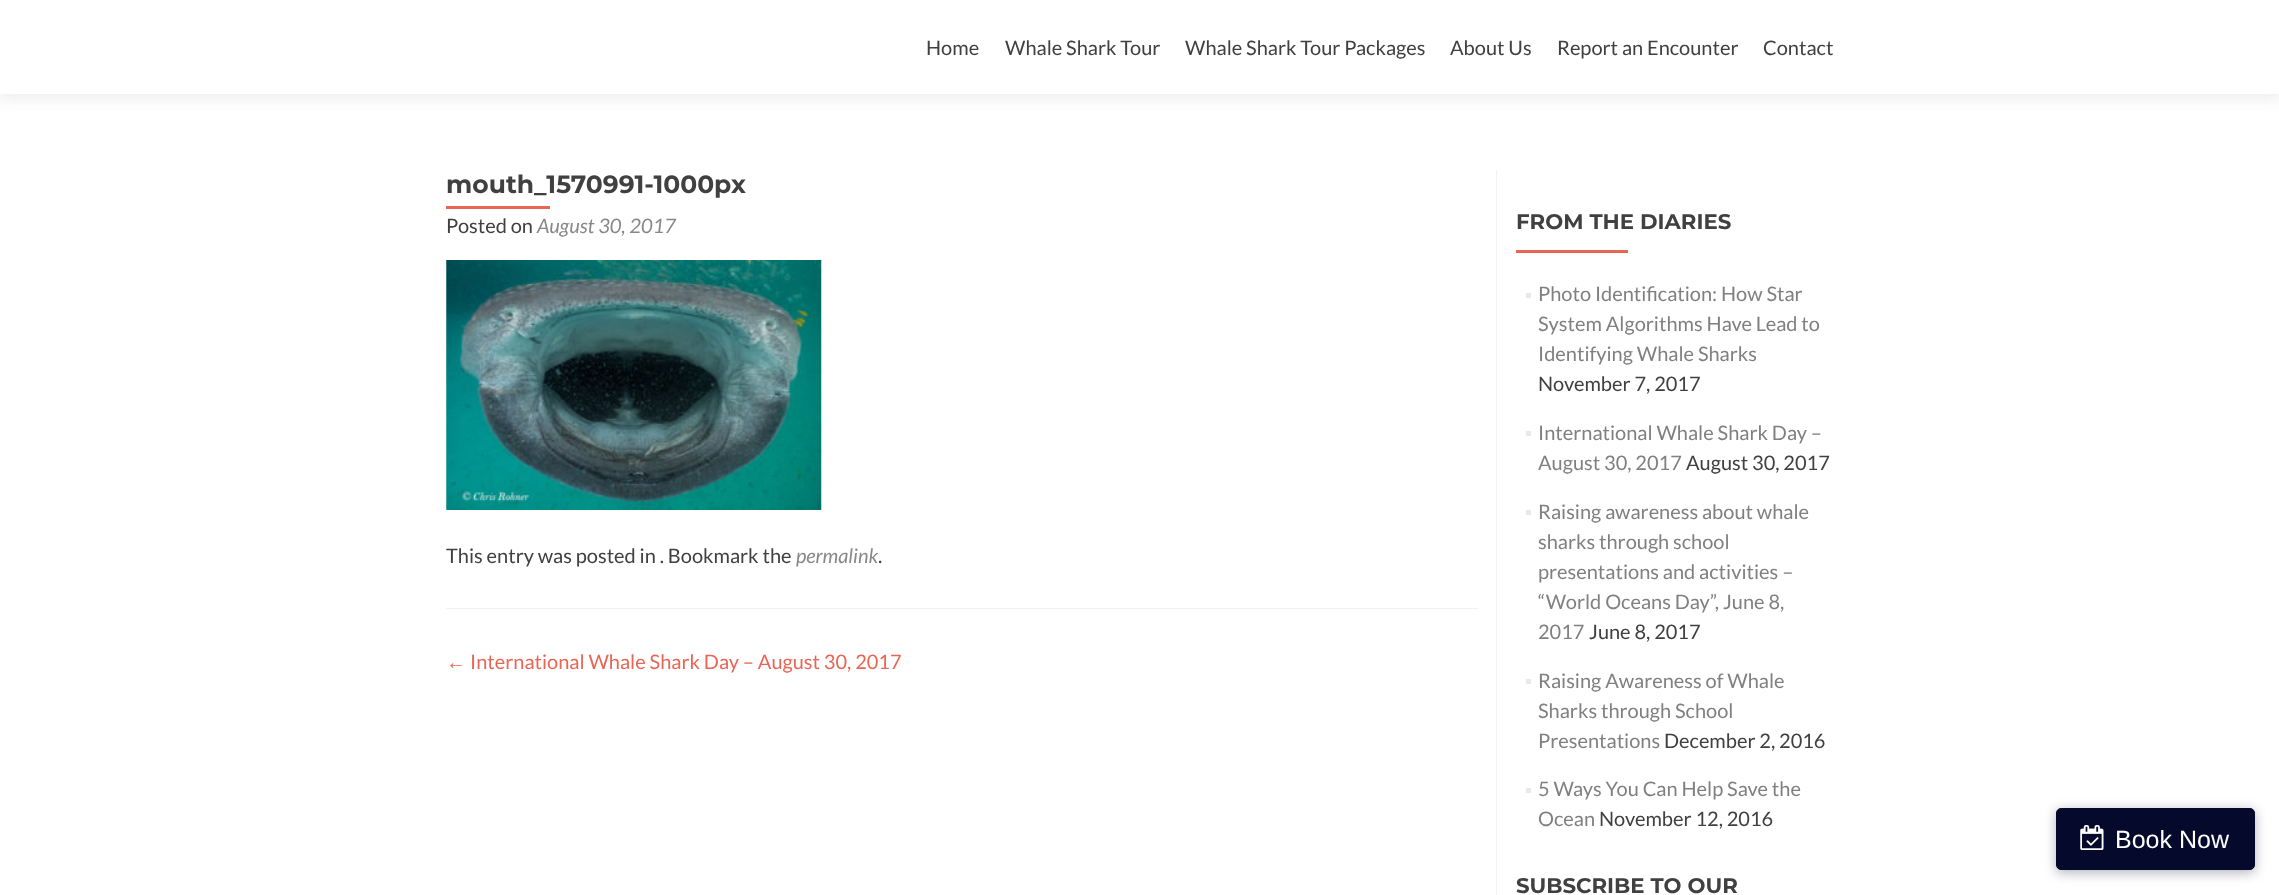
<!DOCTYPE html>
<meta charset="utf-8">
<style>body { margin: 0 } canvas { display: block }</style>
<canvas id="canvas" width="2279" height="895"></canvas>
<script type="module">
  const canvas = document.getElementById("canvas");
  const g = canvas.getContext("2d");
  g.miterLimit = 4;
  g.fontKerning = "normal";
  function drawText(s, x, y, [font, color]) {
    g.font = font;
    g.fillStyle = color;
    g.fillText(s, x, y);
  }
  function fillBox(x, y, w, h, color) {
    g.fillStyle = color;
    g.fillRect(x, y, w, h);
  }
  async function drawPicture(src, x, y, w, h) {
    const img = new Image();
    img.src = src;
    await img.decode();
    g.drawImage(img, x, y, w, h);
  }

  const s1 = ["20px Lato", "#404040"];
  const s2 = ["100 25px Montserrat", "#404040"];
  const s3 = ["italic 20px Lato", "#888888"];
  const s4 = ["20px Liberation Sans", "#E96656"];
  const s5 = ["20px Lato", "#E96656"];
  const s6 = ["100 21.25px Montserrat", "#404040"];
  const s7 = ["20px Lato", "#808080"];
  const s8 = ["25px Liberation Sans", "#FFFFFF"];

  fillBox(0, 0, 2279, 895, "#FFFFFF");
  g.fillStyle = "rgba(50, 50, 50, 0.08)";
  g.filter = "blur(7px)";
  g.beginPath();
  g.rect(0, 6, 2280, 94);
  g.fill();
  g.filter = "none";
  fillBox(0, 0, 2279, 94, "#FFFFFF");
  drawText("Home", 926, 55, s1);
  drawText("Whale Shark Tour", 1005, 55, s1);
  drawText("Whale Shark Tour Packages", 1185, 55, s1);
  drawText("About Us", 1450, 55, s1);
  drawText("Report an Encounter", 1557, 55, s1);
  drawText("Contact", 1763, 55, s1);
  fillBox(446, 608, 1032, 1, "#F2F2F2");
  drawText("mouth_1570991-1000px", 446, 193, s2);
  fillBox(446, 206, 104, 3, "#E96656");
  drawText("Posted on", 446, 233, s1);
  drawText("August 30, 2017", 537, 233, s3);
  await drawPicture("pic1.png", 446, 260, 376, 250);
  drawText("This entry was posted in . Bookmark the", 446, 563, s1);
  drawText("permalink", 796, 563, s3);
  drawText(".", 878, 563, s1);
  drawText("←", 446, 669, s4);
  drawText("International Whale Shark Day – August 30, 2017", 470, 669, s5);
  fillBox(1496, 170, 1, 725, "#F2F2F2");
  drawText("FROM THE DIARIES", 1516, 229, s6);
  fillBox(1516, 250, 112, 3, "#E96656");
  fillBox(1526, 293, 5, 5, "#E9E9E9");
  drawText("Photo Identification: How Star", 1538, 301, s7);
  drawText("System Algorithms Have Lead to", 1538, 331, s7);
  drawText("Identifying Whale Sharks", 1538, 361, s7);
  drawText("November 7, 2017", 1538, 391, s1);
  fillBox(1526, 431, 5, 5, "#E9E9E9");
  drawText("International Whale Shark Day –", 1538, 440, s7);
  drawText("August 30, 2017", 1538, 470, s7);
  drawText("August 30, 2017", 1686, 470, s1);
  fillBox(1526, 510, 5, 5, "#E9E9E9");
  drawText("Raising awareness about whale", 1538, 519, s7);
  drawText("sharks through school", 1538, 549, s7);
  drawText("presentations and activities –", 1538, 579, s7);
  drawText("“World Oceans Day”, June 8,", 1538, 609, s7);
  drawText("2017", 1538, 639, s7);
  drawText("June 8, 2017", 1589, 639, s1);
  fillBox(1526, 679, 5, 5, "#E9E9E9");
  drawText("Raising Awareness of Whale", 1538, 688, s7);
  drawText("Sharks through School", 1538, 718, s7);
  drawText("Presentations", 1538, 748, s7);
  drawText("December 2, 2016", 1664, 748, s1);
  fillBox(1526, 788, 5, 5, "#E9E9E9");
  drawText("5 Ways You Can Help Save the", 1538, 796, s7);
  drawText("Ocean", 1538, 826, s7);
  drawText("November 12, 2016", 1599, 826, s1);
  drawText("SUBSCRIBE TO OUR", 1516, 893, s6);
  g.fillStyle = "rgba(5, 10, 44, 0.3)";
  g.filter = "blur(6px)";
  g.beginPath();
  g.roundRect(2056, 810, 199, 63, 5);
  g.fill();
  g.filter = "none";
  g.fillStyle = "#050A2C";
  g.beginPath();
  g.roundRect(2056.5, 808.5, 198, 61, 4.5);
  g.fill();
  g.strokeStyle = "#050A2C";
  g.stroke();
  await drawPicture("pic2.png", 2080, 825, 24, 25);
  drawText("Book Now", 2115, 848, s8);
</script>
